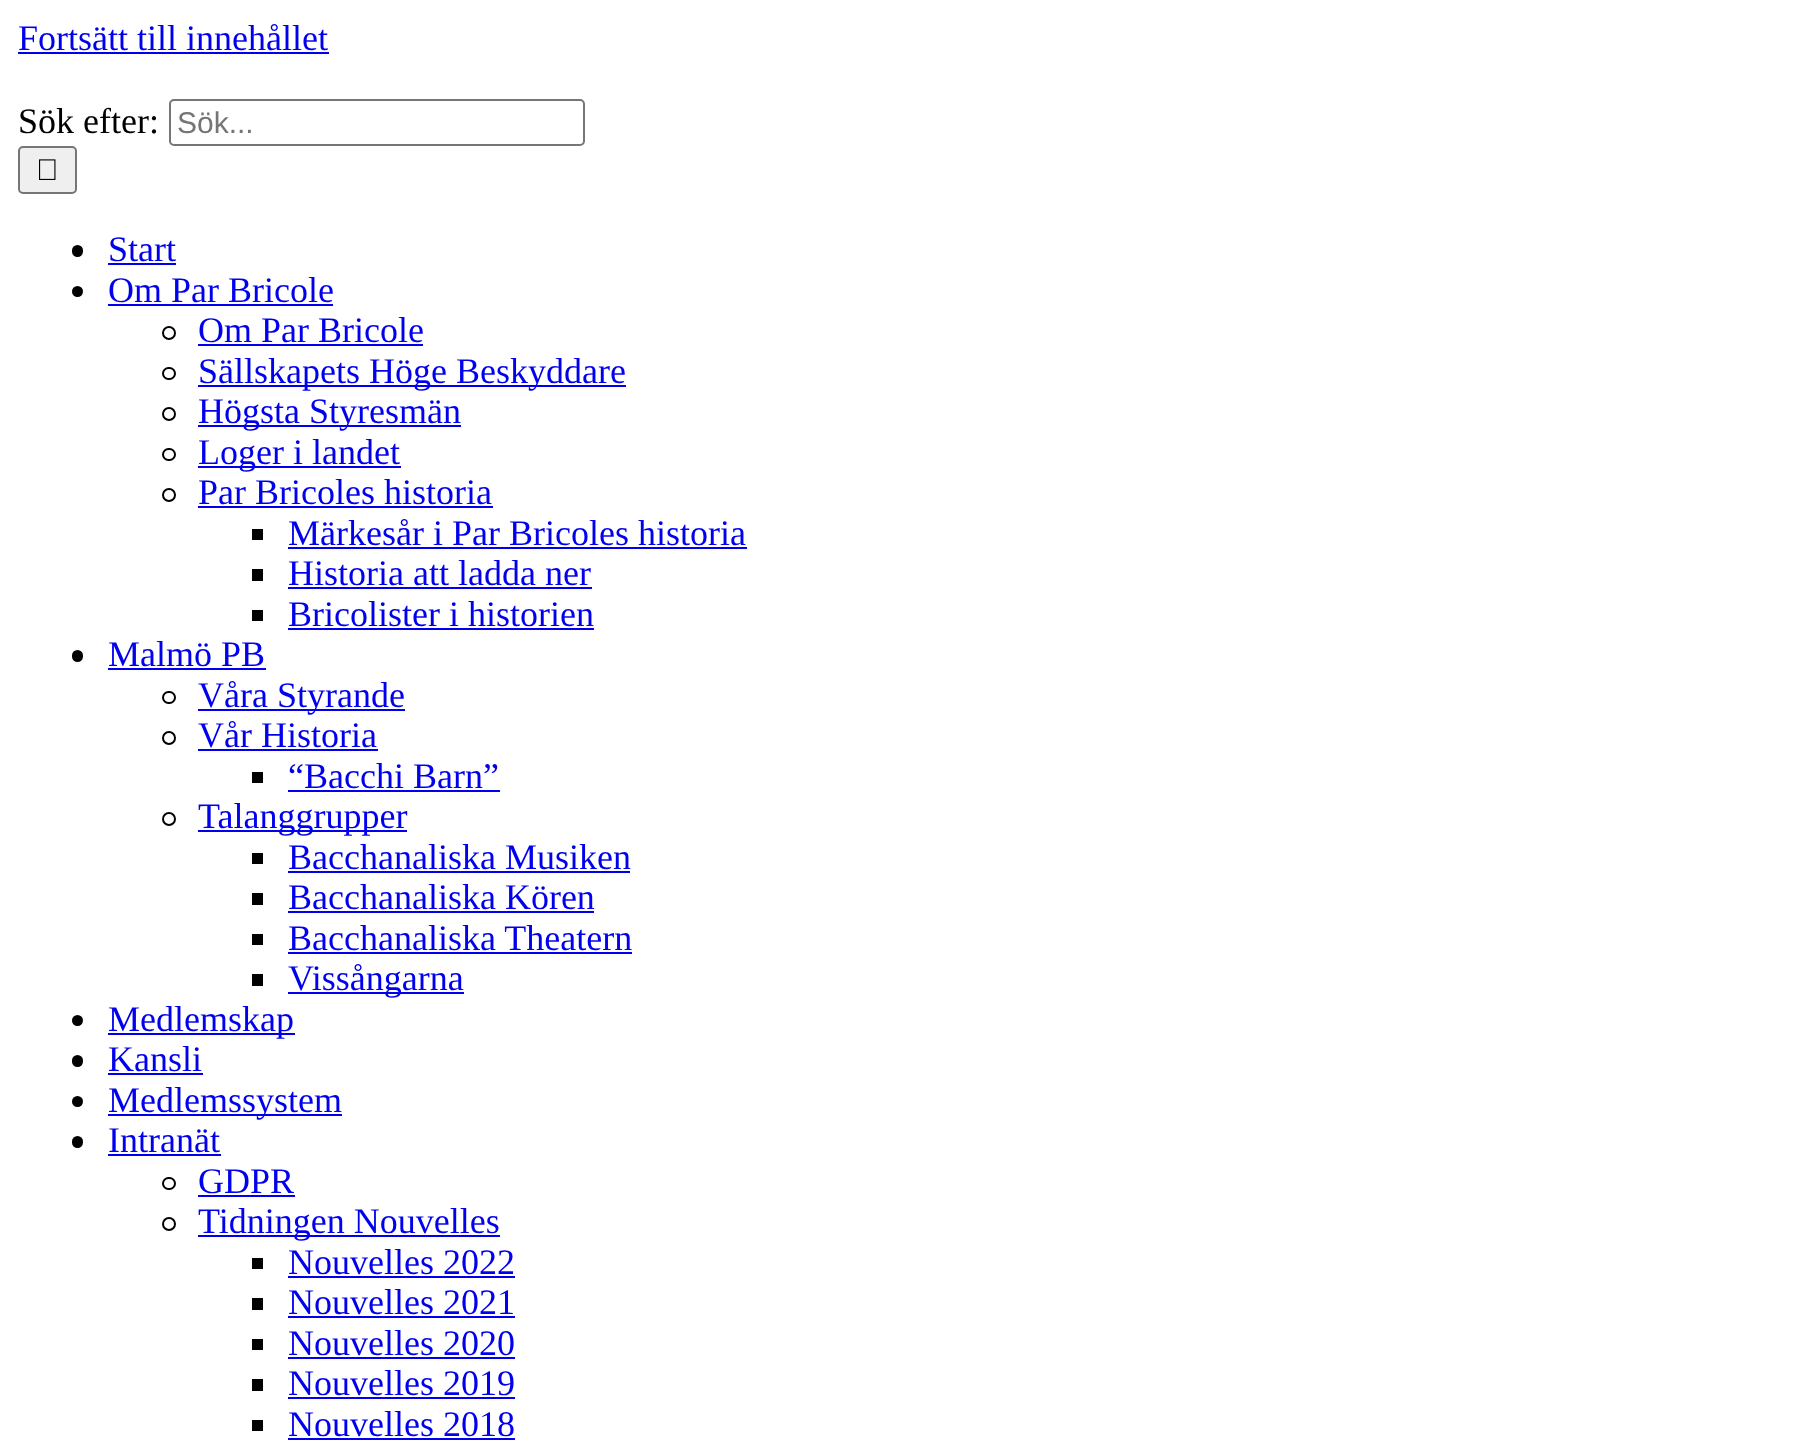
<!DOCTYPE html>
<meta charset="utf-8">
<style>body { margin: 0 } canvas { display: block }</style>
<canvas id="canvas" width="1812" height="1444"></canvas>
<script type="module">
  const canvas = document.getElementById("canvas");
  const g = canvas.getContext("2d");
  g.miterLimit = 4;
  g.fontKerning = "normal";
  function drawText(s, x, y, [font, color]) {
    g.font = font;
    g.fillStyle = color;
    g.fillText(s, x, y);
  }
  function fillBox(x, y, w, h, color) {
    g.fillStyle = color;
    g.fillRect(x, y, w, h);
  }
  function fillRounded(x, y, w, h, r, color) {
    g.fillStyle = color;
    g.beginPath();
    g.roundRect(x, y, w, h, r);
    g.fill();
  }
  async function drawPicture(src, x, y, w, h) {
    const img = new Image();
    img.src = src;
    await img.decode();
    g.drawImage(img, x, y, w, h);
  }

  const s1 = ["36px Liberation Serif", "#0000EE"];
  const s2 = ["36px Liberation Serif", "#000000"];
  const s3 = ["30px Liberation Sans", "#757575"];

  fillBox(0, 0, 1812, 1444, "#FFFFFF");
  drawText("Fortsätt till innehållet", 18, 50, s1);
  fillBox(18, 52, 311, 2, "#0000EE");
  drawText("Sök efter:", 18, 133, s2);
  g.beginPath();
  g.roundRect(170, 100, 414, 45, 4);
  g.strokeStyle = "#767676";
  g.lineWidth = 2;
  g.stroke();
  drawText("Sök...", 177, 133, s3);
  g.fillStyle = "#EFEFEF";
  g.beginPath();
  g.roundRect(19, 147, 57, 46, 4);
  g.fill();
  g.stroke();
  await drawPicture("pic1.png", 39, 159, 17, 21);
  fillRounded(72, 245, 11, 12, 5.5, "#000000");
  drawText("Start", 108, 261, s1);
  fillBox(108, 263, 68, 2, "#0000EE");
  g.fillStyle = "#000000";
  g.beginPath();
  g.arc(77.5, 291.5, 5.5, 0, Math.PI * 2);
  g.fill();
  drawText("Om Par Bricole", 108, 302, s1);
  fillBox(108, 304, 225, 2, "#0000EE");
  g.beginPath();
  g.arc(169, 333, 6, 0, Math.PI * 2);
  g.strokeStyle = "#000000";
  g.stroke();
  drawText("Om Par Bricole", 198, 342, s1);
  fillBox(198, 344, 225, 2, "#0000EE");
  g.beginPath();
  g.roundRect(163, 368, 12, 11, 5.5);
  g.stroke();
  fillBox(198, 385, 428, 2, "#0000EE");
  drawText("Sällskapets Höge Beskyddare", 198, 383, s1);
  g.beginPath();
  g.arc(169, 414, 6, 0, Math.PI * 2);
  g.stroke();
  fillBox(198, 425, 263, 2, "#0000EE");
  drawText("Högsta Styresmän", 198, 423, s1);
  g.beginPath();
  g.roundRect(163, 449, 12, 11, 5.5);
  g.stroke();
  fillBox(198, 466, 203, 2, "#0000EE");
  drawText("Loger i landet", 198, 464, s1);
  g.beginPath();
  g.arc(169, 495, 6, 0, Math.PI * 2);
  g.stroke();
  drawText("Par Bricoles historia", 198, 504, s1);
  fillBox(198, 506, 295, 2, "#0000EE");
  fillBox(252, 529, 11, 11, "#000000");
  drawText("Märkesår i Par Bricoles historia", 288, 545, s1);
  fillBox(288, 547, 459, 2, "#0000EE");
  fillBox(252, 569, 11, 12, "#000000");
  drawText("Historia att ladda ner", 288, 585, s1);
  fillBox(288, 587, 304, 2, "#0000EE");
  fillBox(252, 610, 11, 11, "#000000");
  drawText("Bricolister i historien", 288, 626, s1);
  fillBox(288, 628, 306, 2, "#0000EE");
  fillRounded(72, 650, 11, 12, 5.5, "#000000");
  drawText("Malmö PB", 108, 666, s1);
  fillBox(108, 668, 158, 2, "#0000EE");
  g.beginPath();
  g.roundRect(163, 692, 12, 11, 5.5);
  g.stroke();
  fillBox(198, 709, 207, 2, "#0000EE");
  drawText("Våra Styrande", 198, 707, s1);
  g.beginPath();
  g.arc(169, 738, 6, 0, Math.PI * 2);
  g.stroke();
  drawText("Vår Historia", 198, 747, s1);
  fillBox(198, 749, 180, 2, "#0000EE");
  fillBox(252, 772, 11, 11, "#000000");
  drawText("“Bacchi Barn”", 288, 788, s1);
  fillBox(288, 790, 212, 2, "#0000EE");
  g.beginPath();
  g.arc(169, 819, 6, 0, Math.PI * 2);
  g.stroke();
  fillBox(198, 830, 209, 2, "#0000EE");
  drawText("Talanggrupper", 198, 828, s1);
  fillBox(252, 853, 11, 11, "#000000");
  drawText("Bacchanaliska Musiken", 288, 869, s1);
  fillBox(288, 871, 342, 2, "#0000EE");
  fillBox(252, 893, 11, 12, "#000000");
  drawText("Bacchanaliska Kören", 288, 909, s1);
  fillBox(288, 911, 306, 2, "#0000EE");
  fillBox(252, 934, 11, 11, "#000000");
  drawText("Bacchanaliska Theatern", 288, 950, s1);
  fillBox(288, 952, 344, 2, "#0000EE");
  fillBox(252, 974, 11, 12, "#000000");
  fillBox(288, 992, 176, 2, "#0000EE");
  drawText("Vissångarna", 288, 990, s1);
  g.fillStyle = "#000000";
  g.beginPath();
  g.arc(77.5, 1020.5, 5.5, 0, Math.PI * 2);
  g.fill();
  fillBox(108, 1033, 187, 2, "#0000EE");
  drawText("Medlemskap", 108, 1031, s1);
  fillRounded(72, 1055, 11, 12, 5.5, "#000000");
  drawText("Kansli", 108, 1071, s1);
  fillBox(108, 1073, 95, 2, "#0000EE");
  g.fillStyle = "#000000";
  g.beginPath();
  g.arc(77.5, 1101.5, 5.5, 0, Math.PI * 2);
  g.fill();
  fillBox(108, 1114, 234, 2, "#0000EE");
  drawText("Medlemssystem", 108, 1112, s1);
  fillRounded(72, 1136, 11, 12, 5.5, "#000000");
  drawText("Intranät", 108, 1152, s1);
  fillBox(108, 1154, 113, 2, "#0000EE");
  g.beginPath();
  g.roundRect(163, 1178, 12, 11, 5.5);
  g.stroke();
  drawText("GDPR", 198, 1193, s1);
  fillBox(198, 1195, 97, 2, "#0000EE");
  g.beginPath();
  g.arc(169, 1224, 6, 0, Math.PI * 2);
  g.stroke();
  fillBox(198, 1235, 302, 2, "#0000EE");
  drawText("Tidningen Nouvelles", 198, 1233, s1);
  fillBox(252, 1258, 11, 11, "#000000");
  drawText("Nouvelles 2022", 288, 1274, s1);
  fillBox(288, 1276, 227, 2, "#0000EE");
  fillBox(252, 1298, 11, 12, "#000000");
  drawText("Nouvelles 2021", 288, 1314, s1);
  fillBox(288, 1316, 227, 2, "#0000EE");
  fillBox(252, 1339, 11, 11, "#000000");
  drawText("Nouvelles 2020", 288, 1355, s1);
  fillBox(288, 1357, 227, 2, "#0000EE");
  fillBox(252, 1379, 11, 12, "#000000");
  drawText("Nouvelles 2019", 288, 1395, s1);
  fillBox(288, 1397, 227, 2, "#0000EE");
  fillBox(252, 1420, 11, 11, "#000000");
  drawText("Nouvelles 2018", 288, 1436, s1);
  fillBox(288, 1438, 227, 2, "#0000EE");
</script>
